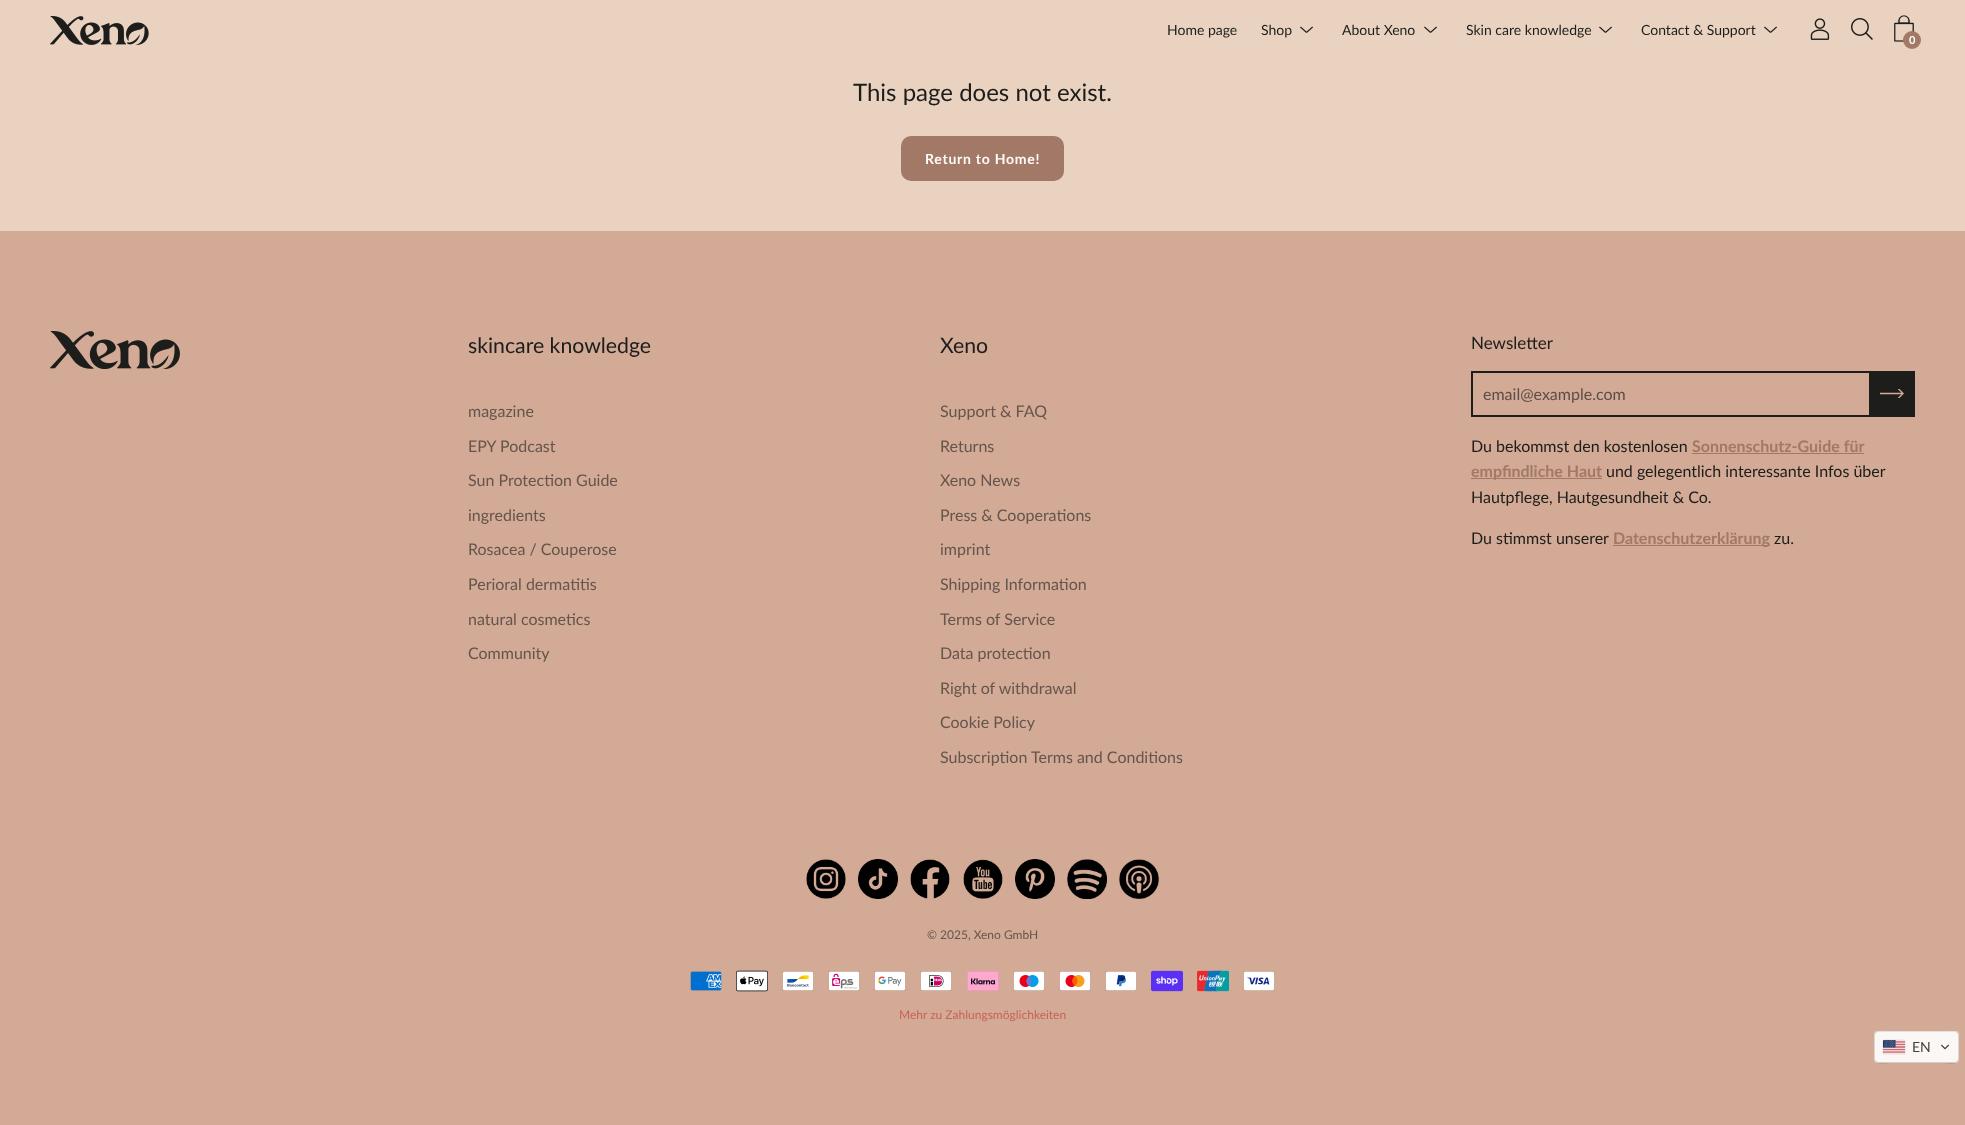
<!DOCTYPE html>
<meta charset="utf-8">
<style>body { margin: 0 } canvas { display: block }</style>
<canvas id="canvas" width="1965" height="1125"></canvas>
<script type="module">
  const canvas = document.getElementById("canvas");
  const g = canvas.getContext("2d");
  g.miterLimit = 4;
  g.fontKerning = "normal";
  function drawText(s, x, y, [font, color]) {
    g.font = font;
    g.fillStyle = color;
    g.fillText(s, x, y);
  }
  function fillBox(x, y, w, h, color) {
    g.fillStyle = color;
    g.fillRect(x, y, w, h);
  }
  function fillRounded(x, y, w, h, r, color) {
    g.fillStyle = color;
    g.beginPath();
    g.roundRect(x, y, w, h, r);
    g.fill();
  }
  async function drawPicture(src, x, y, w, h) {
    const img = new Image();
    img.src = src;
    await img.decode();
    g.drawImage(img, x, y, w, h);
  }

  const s1 = ["14px Lato", "#1D1D1B"];
  const s2 = ["bold 11px Lato", "#FFFFFF"];
  const s3 = ["24px Lato", "#1D1D1B"];
  const s4 = ["bold 14px Lato", "#FFFBF8"];
  const s5 = ["21.25px Lato", "#1D1D1B"];
  const s6 = ["16px Lato", "#65554C"];
  const s7 = ["17px Lato", "#1D1D1B"];
  const s8 = ["16px Lato", "#5C4E46"];
  const s9 = ["16px Lato", "#1D1D1B"];
  const s10 = ["bold 16px Lato", "#A17966"];
  const s11 = ["12px Lato", "#65554C"];
  const s12 = ["12px Lato", "#CB6157"];
  const s13 = ["14px Lato", "#404040"];

  fillBox(0, 0, 1965, 1125, "#E9D3C0");
  await drawPicture("pic1.png", 50, 16, 99, 29);
  drawText("Home page", 1167, 35, s1);
  drawText("Shop", 1261, 35, s1);
  await drawPicture("pic2.png", 1300, 26, 13, 7);
  drawText("About Xeno", 1342, 35, s1);
  await drawPicture("pic2.png", 1424, 26, 13, 7);
  drawText("Skin care knowledge", 1466, 35, s1);
  await drawPicture("pic2.png", 1599, 26, 13, 7);
  drawText("Contact & Support", 1641, 35, s1);
  await drawPicture("pic2.png", 1764, 26, 13, 7);
  await drawPicture("pic3.png", 1810, 18, 20, 22);
  await drawPicture("pic4.png", 1851, 18, 22, 22);
  await drawPicture("pic5.png", 1894, 15, 20, 27);
  g.fillStyle = "#A17966";
  g.beginPath();
  g.arc(1912, 40, 9, 0, Math.PI * 2);
  g.fill();
  drawText("0", 1909, 44, s2);
  drawText("This page does not exist.", 853, 101, s3);
  fillRounded(901, 136, 163, 45, 10, "#A17966");
  g.letterSpacing = "0.75px";
  drawText("Return to Home!", 925, 164, s4);
  fillBox(0, 231, 1965, 894, "#D2AA96");
  await drawPicture("pic6.png", 50, 331, 130, 38);
  g.letterSpacing = "0px";
  drawText("skincare knowledge", 468, 353, s5);
  drawText("magazine", 468, 417, s6);
  drawText("EPY Podcast", 468, 452, s6);
  drawText("Sun Protection Guide", 468, 486, s6);
  drawText("ingredients", 468, 521, s6);
  drawText("Rosacea / Couperose", 468, 555, s6);
  drawText("Perioral dermatitis", 468, 590, s6);
  drawText("natural cosmetics", 468, 625, s6);
  drawText("Community", 468, 659, s6);
  drawText("Xeno", 940, 353, s5);
  drawText("Support & FAQ", 940, 417, s6);
  drawText("Returns", 940, 452, s6);
  drawText("Xeno News", 940, 486, s6);
  drawText("Press & Cooperations", 940, 521, s6);
  drawText("imprint", 940, 555, s6);
  drawText("Shipping Information", 940, 590, s6);
  drawText("Terms of Service", 940, 625, s6);
  drawText("Data protection", 940, 659, s6);
  drawText("Right of withdrawal", 940, 694, s6);
  drawText("Cookie Policy", 940, 728, s6);
  drawText("Subscription Terms and Conditions", 940, 763, s6);
  drawText("Newsletter", 1471, 349, s7);
  g.strokeStyle = "#1D1D1B";
  g.lineWidth = 2;
  g.strokeRect(1472, 372, 398, 44);
  drawText("email@example.com", 1483, 400, s8);
  fillBox(1871, 371, 44, 46, "#1D1D1B");
  await drawPicture("pic7.png", 1880, 389, 24, 9);
  drawText("Du bekommst den kostenlosen", 1471, 452, s9);
  drawText("Sonnenschutz-Guide für", 1692, 452, s10);
  fillBox(1692, 453, 172, 1, "#A17966");
  fillBox(1471, 478, 131, 1, "#A17966");
  drawText("empfindliche Haut", 1471, 477, s10);
  drawText("und gelegentlich interessante Infos über", 1606, 477, s9);
  drawText("Hautpflege, Hautgesundheit & Co.", 1471, 503, s9);
  drawText("Du stimmst unserer", 1471, 544, s9);
  fillBox(1613, 545, 157, 1, "#A17966");
  drawText("Datenschutzerklärung", 1613, 544, s10);
  drawText("zu.", 1774, 544, s9);
  await drawPicture("pic8.png", 806, 859, 40, 40);
  await drawPicture("pic9.png", 858, 859, 40, 40);
  await drawPicture("pic10.png", 910, 859, 40, 40);
  await drawPicture("pic11.png", 963, 859, 40, 40);
  await drawPicture("pic12.png", 1015, 859, 40, 40);
  await drawPicture("pic13.png", 1067, 859, 40, 40);
  await drawPicture("pic14.png", 1119, 859, 40, 40);
  drawText("© 2025, Xeno GmbH", 927, 939, s11);
  await drawPicture("pic15.png", 690, 971, 32, 20);
  await drawPicture("pic16.png", 736, 970, 32, 22);
  await drawPicture("pic17.png", 782, 971, 32, 20);
  await drawPicture("pic18.png", 828, 971, 32, 20);
  await drawPicture("pic19.png", 874, 971, 32, 20);
  await drawPicture("pic20.png", 920, 971, 32, 20);
  await drawPicture("pic21.png", 967, 971, 32, 20);
  await drawPicture("pic22.png", 1013, 971, 32, 20);
  await drawPicture("pic23.png", 1059, 971, 32, 20);
  await drawPicture("pic24.png", 1105, 971, 32, 20);
  await drawPicture("pic25.png", 1151, 970, 32, 22);
  await drawPicture("pic26.png", 1197, 970, 32, 22);
  await drawPicture("pic27.png", 1243, 971, 32, 20);
  drawText("Mehr zu Zahlungsmöglichkeiten", 899, 1019, s12);
  fillRounded(1874, 1031, 85, 32, 4, "#FBF7F5");
  g.fillStyle = "rgba(204, 204, 204, 0.5)";
  g.beginPath();
  g.moveTo(1878, 1032);
  g.lineTo(1955, 1032);
  g.bezierCurveTo(1957, 1032, 1959, 1034, 1959, 1036);
  g.bezierCurveTo(1959, 1028, 1947, 1031, 1942, 1031);
  g.lineTo(1891, 1031);
  g.bezierCurveTo(1886, 1031, 1874, 1028, 1874, 1036);
  g.bezierCurveTo(1874, 1034, 1876, 1032, 1878, 1032);
  g.closePath();
  g.fill();
  g.fillStyle = "rgba(0, 0, 0, 0.17)";
  g.beginPath();
  g.moveTo(1874, 1058);
  g.bezierCurveTo(1874, 1066, 1886, 1063, 1891, 1063);
  g.lineTo(1942, 1063);
  g.bezierCurveTo(1947, 1063, 1959, 1066, 1959, 1058);
  g.bezierCurveTo(1959, 1060, 1957, 1062, 1955, 1062);
  g.lineTo(1878, 1062);
  g.bezierCurveTo(1876, 1062, 1874, 1060, 1874, 1058);
  g.closePath();
  g.fill();
  g.fillStyle = "rgba(0, 0, 0, 0.13)";
  g.beginPath();
  g.moveTo(1954, 1063);
  g.bezierCurveTo(1959.5, 1063, 1959, 1059.5, 1959, 1055);
  g.lineTo(1959, 1039);
  g.bezierCurveTo(1959, 1034.5, 1959.5, 1031, 1954, 1031);
  g.bezierCurveTo(1956, 1031, 1958, 1033, 1958, 1035);
  g.lineTo(1958, 1059);
  g.bezierCurveTo(1958, 1061, 1956, 1063, 1954, 1063);
  g.closePath();
  g.fill();
  g.beginPath();
  g.moveTo(1878, 1031);
  g.bezierCurveTo(1876, 1031, 1874, 1033, 1874, 1035);
  g.lineTo(1874, 1059);
  g.bezierCurveTo(1874, 1061, 1876, 1063, 1878, 1063);
  g.lineTo(1879, 1063);
  g.bezierCurveTo(1877, 1063, 1875, 1061, 1875, 1059);
  g.lineTo(1875, 1035);
  g.bezierCurveTo(1875, 1033, 1877, 1031, 1879, 1031);
  g.closePath();
  g.fill();
  g.beginPath();
  g.roundRect(1882.5, 1039.5, 23, 15, 1.5);
  g.strokeStyle = "#EEEDED";
  g.lineWidth = 1;
  g.stroke();
  await drawPicture("pic28.png", 1883, 1040, 22, 14);
  drawText("EN", 1912, 1052, s13);
  await drawPicture("pic29.png", 1941, 1044, 8, 6);
</script>
